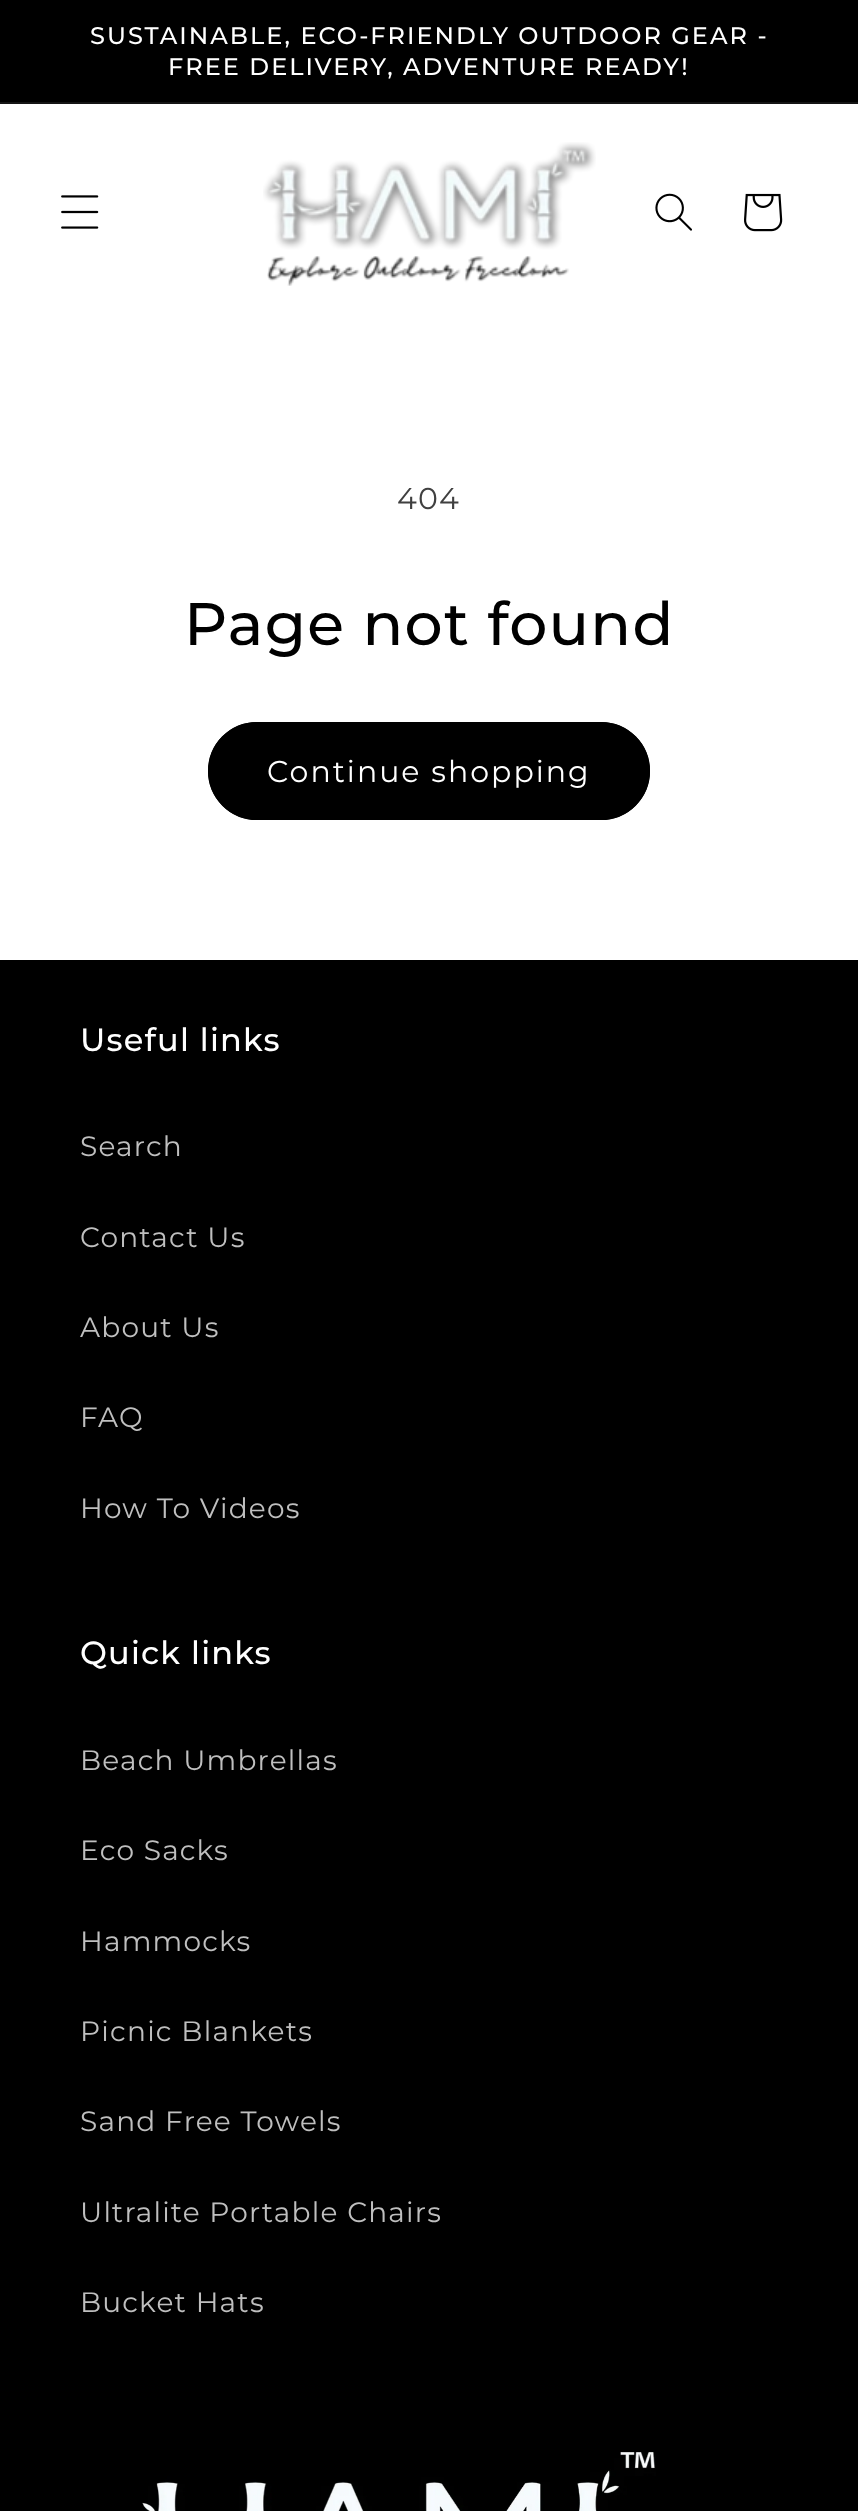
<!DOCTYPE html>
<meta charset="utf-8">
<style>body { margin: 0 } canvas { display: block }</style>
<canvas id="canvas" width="858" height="2511"></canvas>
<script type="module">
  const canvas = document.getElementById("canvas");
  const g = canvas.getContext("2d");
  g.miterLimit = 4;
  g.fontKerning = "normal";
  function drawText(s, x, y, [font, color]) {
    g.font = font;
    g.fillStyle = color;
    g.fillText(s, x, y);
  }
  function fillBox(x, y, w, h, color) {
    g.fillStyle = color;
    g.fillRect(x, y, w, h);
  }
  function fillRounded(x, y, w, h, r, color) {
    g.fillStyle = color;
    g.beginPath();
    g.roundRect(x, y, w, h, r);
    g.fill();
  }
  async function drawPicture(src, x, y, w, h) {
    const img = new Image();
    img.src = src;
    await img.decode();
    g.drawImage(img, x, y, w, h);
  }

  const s1 = ["500 24px Montserrat", "#FFFFFF"];
  const s2 = ["30px Montserrat", "#404040"];
  const s3 = ["500 60px Montserrat", "#000000"];
  const s4 = ["30px Montserrat", "#FFFFFF"];
  const s5 = ["500 32px Montserrat", "#FFFFFF"];
  const s6 = ["28px Montserrat", "#BFBFBF"];

  fillBox(0, 0, 858, 2511, "#FFFFFF");
  fillBox(0, 0, 858, 102, "#000000");
  fillBox(0, 102, 858, 2, "#141414");
  g.letterSpacing = "2px";
  drawText("SUSTAINABLE, ECO-FRIENDLY OUTDOOR GEAR -", 90, 44, s1);
  drawText("FREE DELIVERY, ADVENTURE READY!", 168, 75, s1);
  await drawPicture("pic1.png", 61, 195, 38, 34);
  await drawPicture("pic2.png", 263, 142, 333, 144);
  await drawPicture("pic3.png", 655, 193, 37, 38);
  await drawPicture("pic4.png", 744, 193, 39, 39);
  g.letterSpacing = "1.2px";
  drawText("404", 397, 509, s2);
  drawText("Page not found", 184, 645, s3);
  fillRounded(208, 722, 442, 98, 49, "#000000");
  g.beginPath();
  g.roundRect(210, 724, 438, 94, 47);
  g.strokeStyle = "#000000";
  g.lineWidth = 4;
  g.stroke();
  g.letterSpacing = "2px";
  drawText("Continue shopping", 267, 782, s4);
  fillBox(0, 960, 858, 1551, "#000000");
  g.letterSpacing = "1.2px";
  drawText("Useful links", 80, 1051, s5);
  drawText("Search", 80, 1156, s6);
  drawText("Contact Us", 80, 1247, s6);
  drawText("About Us", 80, 1337, s6);
  drawText("FAQ", 80, 1427, s6);
  drawText("How To Videos", 80, 1518, s6);
  drawText("Quick links", 80, 1664, s5);
  drawText("Beach Umbrellas", 80, 1770, s6);
  drawText("Eco Sacks", 80, 1860, s6);
  drawText("Hammocks", 80, 1951, s6);
  drawText("Picnic Blankets", 80, 2041, s6);
  drawText("Sand Free Towels", 80, 2131, s6);
  drawText("Ultralite Portable Chairs", 80, 2222, s6);
  drawText("Bucket Hats", 80, 2312, s6);
  await drawPicture("pic5.png", 142, 2452, 514, 59);
</script>
